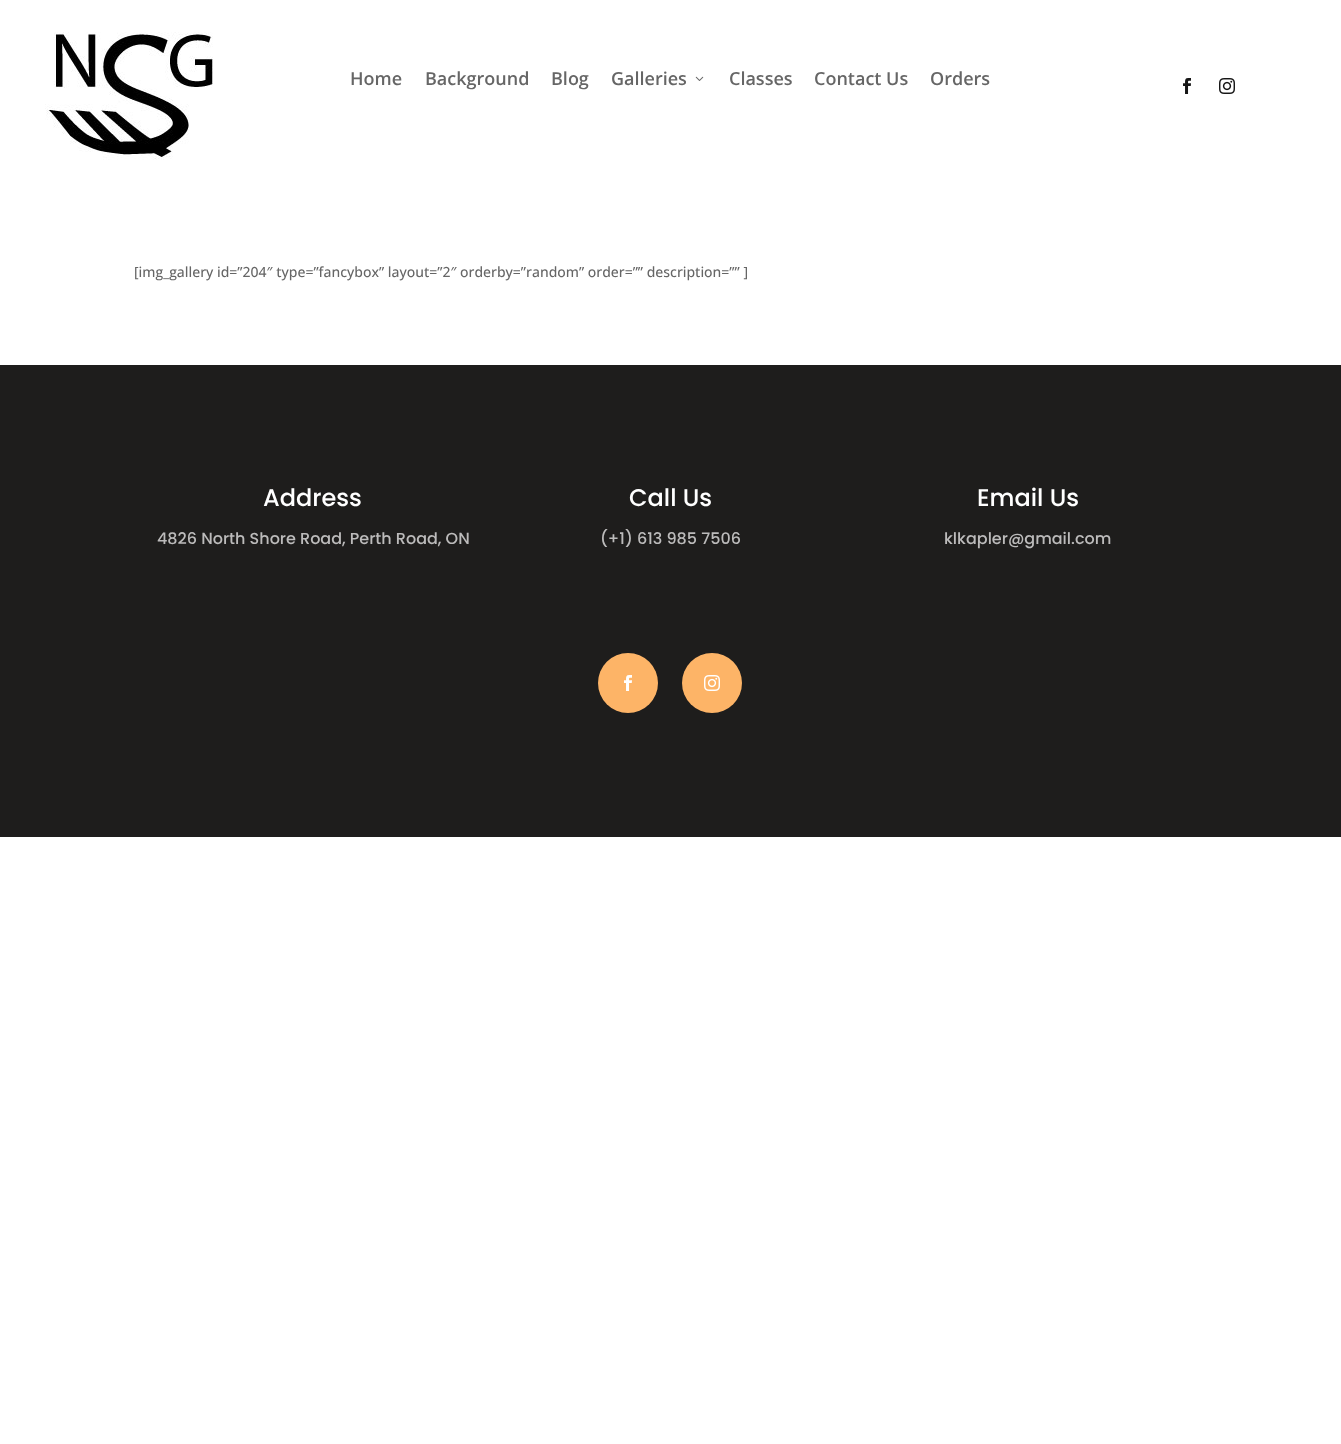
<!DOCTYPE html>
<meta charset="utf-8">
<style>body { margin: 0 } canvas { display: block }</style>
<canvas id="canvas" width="1341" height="1444"></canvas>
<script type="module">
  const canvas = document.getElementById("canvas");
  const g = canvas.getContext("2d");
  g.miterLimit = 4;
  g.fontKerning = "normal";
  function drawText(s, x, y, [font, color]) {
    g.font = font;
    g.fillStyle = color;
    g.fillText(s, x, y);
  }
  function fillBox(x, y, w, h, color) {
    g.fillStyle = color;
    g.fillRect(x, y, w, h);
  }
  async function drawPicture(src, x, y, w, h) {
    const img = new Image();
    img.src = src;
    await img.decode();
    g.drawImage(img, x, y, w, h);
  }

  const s1 = ["600 18px Open Sans", "#666666"];
  const s2 = ["500 14px Open Sans", "#666666"];
  const s3 = ["500 24px Poppins", "#FFFFFF"];
  const s4 = ["500 16px Poppins", "#BCBBBB"];

  fillBox(0, 0, 1341, 1444, "#FFFFFF");
  await drawPicture("pic1.png", 45, 32, 168, 128);
  drawText("Home", 350, 85, s1);
  drawText("Background", 425, 85, s1);
  drawText("Blog", 551, 85, s1);
  drawText("Galleries", 611, 85, s1);
  await drawPicture("pic2.png", 695, 76, 9, 5);
  drawText("Classes", 729, 85, s1);
  drawText("Contact Us", 814, 85, s1);
  drawText("Orders", 930, 85, s1);
  await drawPicture("pic3.png", 1183, 78, 8, 16);
  await drawPicture("pic4.png", 1219, 78, 16, 16);
  drawText("[img_gallery id=”204″ type=”fancybox” layout=”2″ orderby=”random” order=”” description=”” ]", 134, 277, s2);
  fillBox(0, 365, 1341, 472, "#1E1D1C");
  drawText("Address", 263, 506, s3);
  drawText("4826 North Shore Road, Perth Road, ON", 157, 544, s4);
  drawText("Call Us", 629, 506, s3);
  drawText("(+1) 613 985 7506", 600, 544, s4);
  drawText("Email Us", 977, 506, s3);
  drawText("klkapler@gmail.com", 944, 544, s4);
  g.fillStyle = "#FDB467";
  g.beginPath();
  g.arc(628, 683, 30, 0, Math.PI * 2);
  g.fill();
  await drawPicture("pic5.png", 624, 675, 8, 16);
  g.beginPath();
  g.arc(712, 683, 30, 0, Math.PI * 2);
  g.fill();
  await drawPicture("pic6.png", 704, 675, 16, 16);
</script>
